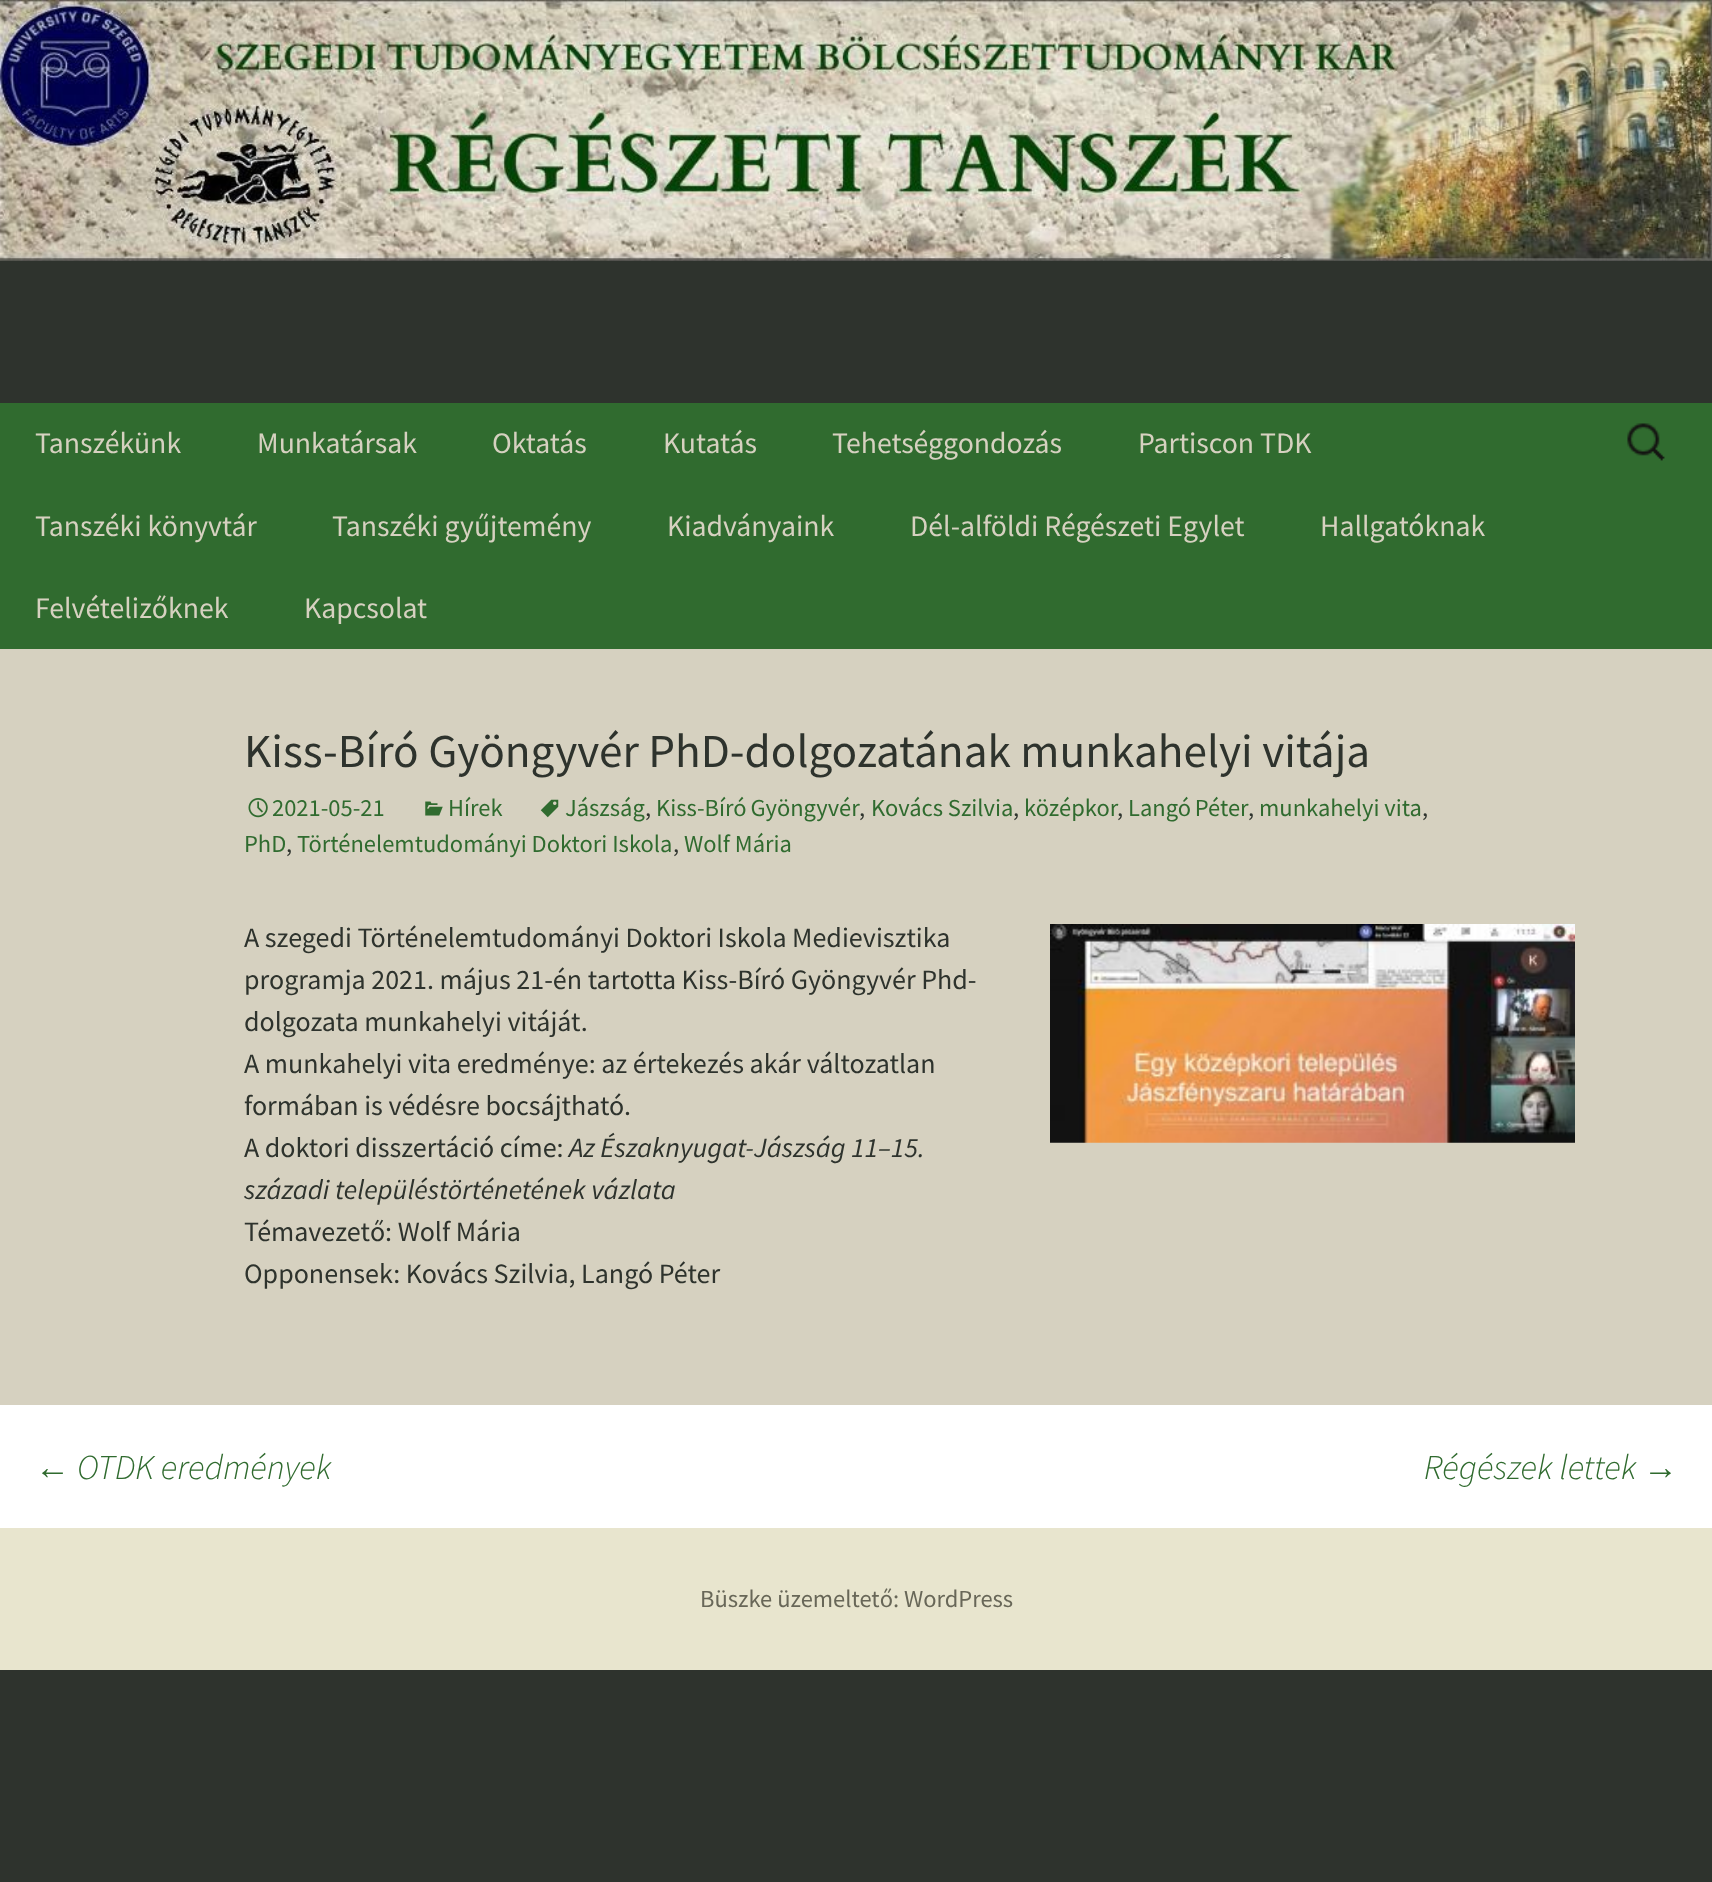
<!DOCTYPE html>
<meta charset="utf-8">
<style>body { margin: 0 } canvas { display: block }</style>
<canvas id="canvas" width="1712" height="1882"></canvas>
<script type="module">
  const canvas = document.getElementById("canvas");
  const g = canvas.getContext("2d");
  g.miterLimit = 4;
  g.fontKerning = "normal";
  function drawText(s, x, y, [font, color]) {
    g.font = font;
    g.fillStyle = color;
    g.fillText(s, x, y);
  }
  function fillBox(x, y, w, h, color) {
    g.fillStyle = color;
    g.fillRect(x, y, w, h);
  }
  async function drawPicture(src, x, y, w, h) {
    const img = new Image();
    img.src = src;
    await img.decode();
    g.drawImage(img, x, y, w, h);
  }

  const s1 = ["29.75px Source Sans Pro", "#D6D1C0"];
  const s2 = ["47.25px Source Sans Pro", "#2E332D"];
  const s3 = ["24.5px Source Sans Pro", "#306B2F"];
  const s4 = ["24.5px Source Sans Pro", "#2E332D"];
  const s5 = ["28px Source Sans Pro", "#2E332D"];
  const s6 = ["italic 28px Source Sans Pro", "#2E332D"];
  const s7 = ["italic 35px Liberation Sans", "#306B2F"];
  const s8 = ["italic 300 35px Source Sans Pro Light", "#306B2F"];
  const s9 = ["24.5px Source Sans Pro", "#686758"];

  fillBox(0, 0, 1712, 1882, "#2E332D");
  await drawPicture("pic1.png", 0, 0, 1712, 261);
  fillBox(0, 403, 1712, 246, "#306B2F");
  drawText("Tanszékünk", 35, 453, s1);
  drawText("Munkatársak", 257, 453, s1);
  drawText("Oktatás", 492, 453, s1);
  drawText("Kutatás", 663, 453, s1);
  drawText("Tehetséggondozás", 832, 453, s1);
  drawText("Partiscon TDK", 1138, 453, s1);
  drawText("Tanszéki könyvtár", 35, 536, s1);
  drawText("Tanszéki gyűjtemény", 332, 536, s1);
  drawText("Kiadványaink", 667, 536, s1);
  drawText("Dél-alföldi Régészeti Egylet", 910, 536, s1);
  drawText("Hallgatóknak", 1320, 536, s1);
  drawText("Felvételizőknek", 35, 618, s1);
  drawText("Kapcsolat", 304, 618, s1);
  await drawPicture("pic2.png", 1627, 423, 38, 38);
  fillBox(0, 649, 1712, 756, "#D6D1C0");
  drawText("Kiss-Bíró Gyöngyvér PhD-dolgozatának munkahelyi vitája", 244, 767, s2);
  await drawPicture("pic3.png", 540, 799, 19, 19);
  drawText("Jászság", 565, 816, s3);
  drawText(",", 645, 816, s4);
  g.wordSpacing = "-1px";
  drawText("Kiss-Bíró Gyöngyvér", 656, 816, s3);
  g.wordSpacing = "0px";
  drawText(",", 859, 816, s4);
  drawText("Kovács Szilvia", 871, 816, s3);
  drawText(",", 1013, 816, s4);
  drawText("középkor", 1024, 816, s3);
  drawText(",", 1117, 816, s4);
  g.wordSpacing = "-1px";
  drawText("Langó Péter", 1128, 816, s3);
  g.wordSpacing = "0px";
  drawText(",", 1248, 816, s4);
  drawText("munkahelyi vita", 1259, 816, s3);
  drawText(",", 1422, 816, s4);
  drawText("PhD", 244, 852, s3);
  drawText("Történelemtudományi Doktori Iskola", 297, 852, s3);
  drawText("Wolf Mária", 684, 852, s3);
  drawText(",", 286, 852, s4);
  drawText(",", 673, 852, s4);
  await drawPicture("pic4.png", 248, 798, 20, 20);
  drawText("2021-05-21", 272, 816, s3);
  await drawPicture("pic5.png", 425, 801, 18, 15);
  drawText("Hírek", 448, 816, s3);
  drawText("A szegedi Történelemtudományi Doktori Iskola Medievisztika", 244, 947, s5);
  await drawPicture("pic6.png", 1050, 924, 525, 219);
  drawText("programja 2021. május 21-én tartotta Kiss-Bíró Gyöngyvér Phd-", 244, 989, s5);
  drawText("dolgozata munkahelyi vitáját.", 244, 1031, s5);
  drawText("A munkahelyi vita eredménye: az értekezés akár változatlan", 244, 1073, s5);
  drawText("formában is védésre bocsájtható.", 244, 1115, s5);
  drawText("A doktori disszertáció címe:", 244, 1157, s5);
  drawText("Az Északnyugat-Jászság 11–15.", 569, 1157, s6);
  drawText("századi településtörténetének vázlata", 244, 1199, s6);
  drawText("Témavezető: Wolf Mária", 244, 1241, s5);
  drawText("Opponensek: Kovács Szilvia, Langó Péter", 244, 1283, s5);
  fillBox(0, 1405, 1712, 123, "#FFFFFF");
  drawText("←", 35, 1479, s7);
  drawText("OTDK eredmények", 77, 1479, s8);
  drawText("Régészek lettek", 1424, 1479, s8);
  drawText("→", 1643, 1479, s7);
  fillBox(0, 1528, 1712, 142, "#E8E5CE");
  drawText("Büszke üzemeltető: WordPress", 700, 1607, s9);
</script>
